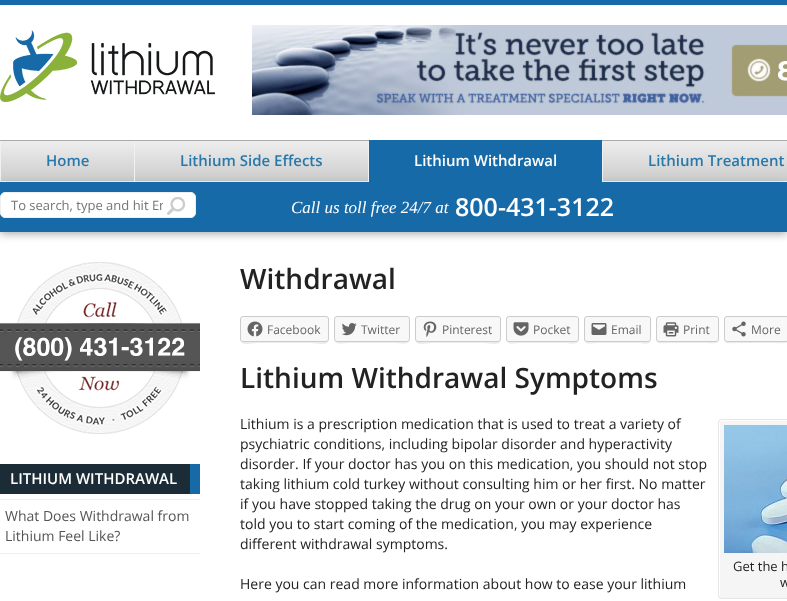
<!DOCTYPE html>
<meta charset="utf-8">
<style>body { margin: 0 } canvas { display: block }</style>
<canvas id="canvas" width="787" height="601"></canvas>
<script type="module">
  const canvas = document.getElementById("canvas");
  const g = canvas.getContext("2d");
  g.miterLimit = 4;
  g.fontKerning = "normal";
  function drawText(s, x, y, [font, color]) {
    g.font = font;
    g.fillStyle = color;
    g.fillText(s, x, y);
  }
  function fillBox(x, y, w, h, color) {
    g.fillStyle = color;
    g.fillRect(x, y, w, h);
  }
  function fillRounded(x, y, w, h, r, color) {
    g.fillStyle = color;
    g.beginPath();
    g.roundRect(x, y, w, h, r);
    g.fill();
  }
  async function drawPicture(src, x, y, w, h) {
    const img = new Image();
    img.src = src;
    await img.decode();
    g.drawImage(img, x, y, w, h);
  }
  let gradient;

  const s1 = ["600 15px Open Sans", "#2978AA"];
  const s2 = ["600 15px Open Sans", "#FFFFFF"];
  const s3 = ["13px Open Sans", "#757575"];
  const s4 = ["italic 17px Liberation Serif", "#FFFFFF"];
  const s5 = ["600 25px Open Sans", "#FFFFFF"];
  const s6 = ["14px Open Sans", "#555555"];
  const s7 = ["600 28px Open Sans", "#222222"];
  const s8 = ["12px Open Sans", "#656565"];
  const s9 = ["14px Open Sans", "#222222"];
  const s10 = ["13px Open Sans", "#222222"];

  fillBox(0, 0, 787, 601, "#FFFFFF");
  fillBox(0, 0, 787, 5, "#166AA8");
  await drawPicture("pic1.png", 0, 30, 215, 72);
  await drawPicture("pic2.png", 252, 25, 535, 90);
  gradient = g.createLinearGradient(394, 141, 394, 181);
  gradient.addColorStop(0, "#EEEEEE");
  gradient.addColorStop(1, "#CCCCCC");
  g.fillStyle = gradient;
  g.fillRect(1, 141, 786, 40);
  fillBox(0, 140, 787, 1, "#AAAAAA");
  fillBox(0, 141, 1, 41, "#F1F1F1");
  g.fillStyle = "#AAAAAA";
  g.filter = "blur(4px)";
  g.beginPath();
  g.rect(0, 184, 787, 50);
  g.fill();
  g.filter = "none";
  fillBox(134, 141, 1, 41, "#F1F1F1");
  drawText("Home", 46, 166, s1);
  fillBox(368, 141, 1, 41, "#F1F1F1");
  drawText("Lithium Side Effects", 180, 166, s1);
  fillBox(602, 141, 1, 41, "#F1F1F1");
  fillBox(369, 140, 233, 42, "#166AA8");
  drawText("Lithium Withdrawal", 414, 166, s2);
  drawText("Lithium Treatment", 648, 166, s1);
  fillBox(0, 182, 787, 50, "#166AA8");
  g.fillStyle = "#FFFFFF";
  g.beginPath();
  g.roundRect(0.5, 192.5, 195, 25, 4.5);
  g.fill();
  g.strokeStyle = "#EEEEEE";
  g.stroke();
  g.save();
  g.beginPath();
  g.rect(11, 196, 152, 18);
  g.clip();
  drawText("To search, type and hit En", 11, 210, s3);
  g.restore();
  await drawPicture("pic3.png", 167, 197, 18, 18);
  drawText("Call us toll free 24/7 at", 291, 213, s4);
  drawText("800-431-3122", 455, 216, s5);
  await drawPicture("pic4.png", 0, 262, 200, 172);
  fillBox(0, 464, 190, 30, "#1C2C37");
  fillBox(190, 464, 10, 30, "#166AA8");
  drawText("LITHIUM WITHDRAWAL", 10, 484, s2);
  fillBox(0, 499, 200, 1, "#EEEEEE");
  fillBox(0, 553, 200, 1, "#EEEEEE");
  drawText("What Does Withdrawal from", 5, 521, s6);
  drawText("Lithium Feel Like?", 5, 541, s6);
  drawText("Withdrawal", 240, 289, s7);
  g.fillStyle = "#EBEBEB";
  g.beginPath();
  g.moveTo(240, 339);
  g.bezierCurveTo(240, 347, 253, 343, 257, 343);
  g.lineTo(312, 343);
  g.bezierCurveTo(316, 343, 329, 347, 329, 339);
  g.bezierCurveTo(329, 341, 328, 342, 326, 342);
  g.lineTo(243, 342);
  g.bezierCurveTo(241, 342, 240, 341, 240, 339);
  g.closePath();
  g.fill();
  g.fillStyle = "#F8F8F8";
  g.beginPath();
  g.roundRect(240.5, 316.5, 88, 25, 2.5);
  g.fill();
  g.strokeStyle = "#CCCCCC";
  g.stroke();
  await drawPicture("pic5.png", 247, 321, 16, 16);
  drawText("Facebook", 267, 334, s8);
  g.fillStyle = "#EBEBEB";
  g.beginPath();
  g.moveTo(334, 339);
  g.bezierCurveTo(334, 346, 345, 343, 349, 343);
  g.lineTo(395, 343);
  g.bezierCurveTo(399, 343, 410, 346, 410, 339);
  g.bezierCurveTo(410, 341, 409, 342, 407, 342);
  g.lineTo(337, 342);
  g.bezierCurveTo(335, 342, 334, 341, 334, 339);
  g.closePath();
  g.fill();
  g.fillStyle = "#F8F8F8";
  g.beginPath();
  g.roundRect(334.5, 316.5, 75, 25, 2.5);
  g.fill();
  g.stroke();
  await drawPicture("pic6.png", 341, 323, 16, 13);
  drawText("Twitter", 361, 334, s8);
  g.fillStyle = "#EBEBEB";
  g.beginPath();
  g.moveTo(415, 339);
  g.bezierCurveTo(415, 347, 428, 343, 431, 343);
  g.lineTo(485, 343);
  g.bezierCurveTo(488, 343, 501, 347, 501, 339);
  g.bezierCurveTo(501, 341, 500, 342, 498, 342);
  g.lineTo(418, 342);
  g.bezierCurveTo(416, 342, 415, 341, 415, 339);
  g.closePath();
  g.fill();
  g.fillStyle = "#F8F8F8";
  g.beginPath();
  g.roundRect(415.5, 316.5, 85, 25, 2.5);
  g.fill();
  g.stroke();
  await drawPicture("pic7.png", 423, 321, 14, 16);
  drawText("Pinterest", 442, 334, s8);
  g.fillStyle = "#EBEBEB";
  g.beginPath();
  g.moveTo(506, 339);
  g.bezierCurveTo(506, 346, 516, 343, 520, 343);
  g.lineTo(565, 343);
  g.bezierCurveTo(569, 343, 579, 346, 579, 339);
  g.bezierCurveTo(579, 341, 578, 342, 576, 342);
  g.lineTo(509, 342);
  g.bezierCurveTo(507, 342, 506, 341, 506, 339);
  g.closePath();
  g.fill();
  g.fillStyle = "#F8F8F8";
  g.beginPath();
  g.roundRect(506.5, 316.5, 72, 25, 2.5);
  g.fill();
  g.stroke();
  await drawPicture("pic8.png", 513, 322, 16, 14);
  drawText("Pocket", 533, 334, s8);
  g.fillStyle = "#EBEBEB";
  g.beginPath();
  g.moveTo(584, 339);
  g.bezierCurveTo(584, 346, 593, 343, 597, 343);
  g.lineTo(638, 343);
  g.bezierCurveTo(642, 343, 651, 346, 651, 339);
  g.bezierCurveTo(651, 341, 650, 342, 648, 342);
  g.lineTo(587, 342);
  g.bezierCurveTo(585, 342, 584, 341, 584, 339);
  g.closePath();
  g.fill();
  g.fillStyle = "#F8F8F8";
  g.beginPath();
  g.roundRect(584.5, 316.5, 66, 25, 2.5);
  g.fill();
  g.stroke();
  await drawPicture("pic9.png", 591, 323, 16, 12);
  drawText("Email", 611, 334, s8);
  g.fillStyle = "#EBEBEB";
  g.beginPath();
  g.moveTo(656, 339);
  g.bezierCurveTo(656, 345, 664, 343, 668, 343);
  g.lineTo(706, 343);
  g.bezierCurveTo(711, 343, 719, 345, 719, 339);
  g.bezierCurveTo(719, 341, 718, 342, 716, 342);
  g.lineTo(659, 342);
  g.bezierCurveTo(657, 342, 656, 341, 656, 339);
  g.closePath();
  g.fill();
  g.fillStyle = "#F8F8F8";
  g.beginPath();
  g.roundRect(656.5, 316.5, 62, 25, 2.5);
  g.fill();
  g.stroke();
  await drawPicture("pic10.png", 663, 322, 16, 15);
  drawText("Print", 683, 334, s8);
  g.fillStyle = "#EBEBEB";
  g.beginPath();
  g.moveTo(724, 339);
  g.bezierCurveTo(724, 345, 732, 343, 737, 343);
  g.lineTo(776, 343);
  g.bezierCurveTo(781, 343, 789, 345, 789, 339);
  g.bezierCurveTo(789, 341, 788, 342, 786, 342);
  g.lineTo(727, 342);
  g.bezierCurveTo(725, 342, 724, 341, 724, 339);
  g.closePath();
  g.fill();
  g.fillStyle = "#F8F8F8";
  g.beginPath();
  g.roundRect(724.5, 316.5, 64, 25, 2.5);
  g.fill();
  g.stroke();
  await drawPicture("pic11.png", 732, 321, 14, 16);
  drawText("More", 751, 334, s8);
  drawText("Lithium Withdrawal Symptoms", 240, 388, s7);
  drawText("Lithium is a prescription medication that is used to treat a variety of", 240, 429, s9);
  drawText("psychiatric conditions, including bipolar disorder and hyperactivity", 240, 449, s9);
  drawText("disorder. If your doctor has you on this medication, you should not stop", 240, 469, s9);
  drawText("taking lithium cold turkey without consulting him or her first. No matter", 240, 489, s9);
  drawText("if you have stopped taking the drug on your own or your doctor has", 240, 509, s9);
  drawText("told you to start coming of the medication, you may experience", 240, 529, s9);
  drawText("different withdrawal symptoms.", 240, 549, s9);
  drawText("Here you can read more information about how to ease your lithium", 240, 589, s9);
  fillRounded(718, 419, 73, 180, 4, "#F5F5F5");
  g.fillStyle = "#FFFFFF";
  g.beginPath();
  g.moveTo(722, 420);
  g.bezierCurveTo(720, 420, 719, 421, 719, 423);
  g.lineTo(719, 595);
  g.bezierCurveTo(719, 597, 720, 598, 722, 598);
  g.lineTo(723, 598);
  g.bezierCurveTo(721, 598, 720, 597, 720, 595);
  g.lineTo(720, 423);
  g.bezierCurveTo(720, 421, 721, 420, 723, 420);
  g.closePath();
  g.fill();
  g.beginPath();
  g.moveTo(722, 421);
  g.lineTo(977, 421);
  g.lineTo(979, 422);
  g.lineTo(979, 424);
  g.lineTo(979, 423);
  g.bezierCurveTo(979, 421, 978, 420, 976, 420);
  g.lineTo(722, 420);
  g.bezierCurveTo(720, 420, 719, 421, 719, 423);
  g.lineTo(719, 424);
  g.bezierCurveTo(719, 422, 720, 421, 722, 421);
  g.closePath();
  g.fill();
  g.beginPath();
  g.roundRect(718.5, 419.5, 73, 179, 3.5);
  g.strokeStyle = "#E6E6E6";
  g.stroke();
  await drawPicture("pic12.png", 724, 425, 63, 128);
  drawText("Get the h", 733, 571, s10);
  drawText("w", 780, 587, s10);
</script>
